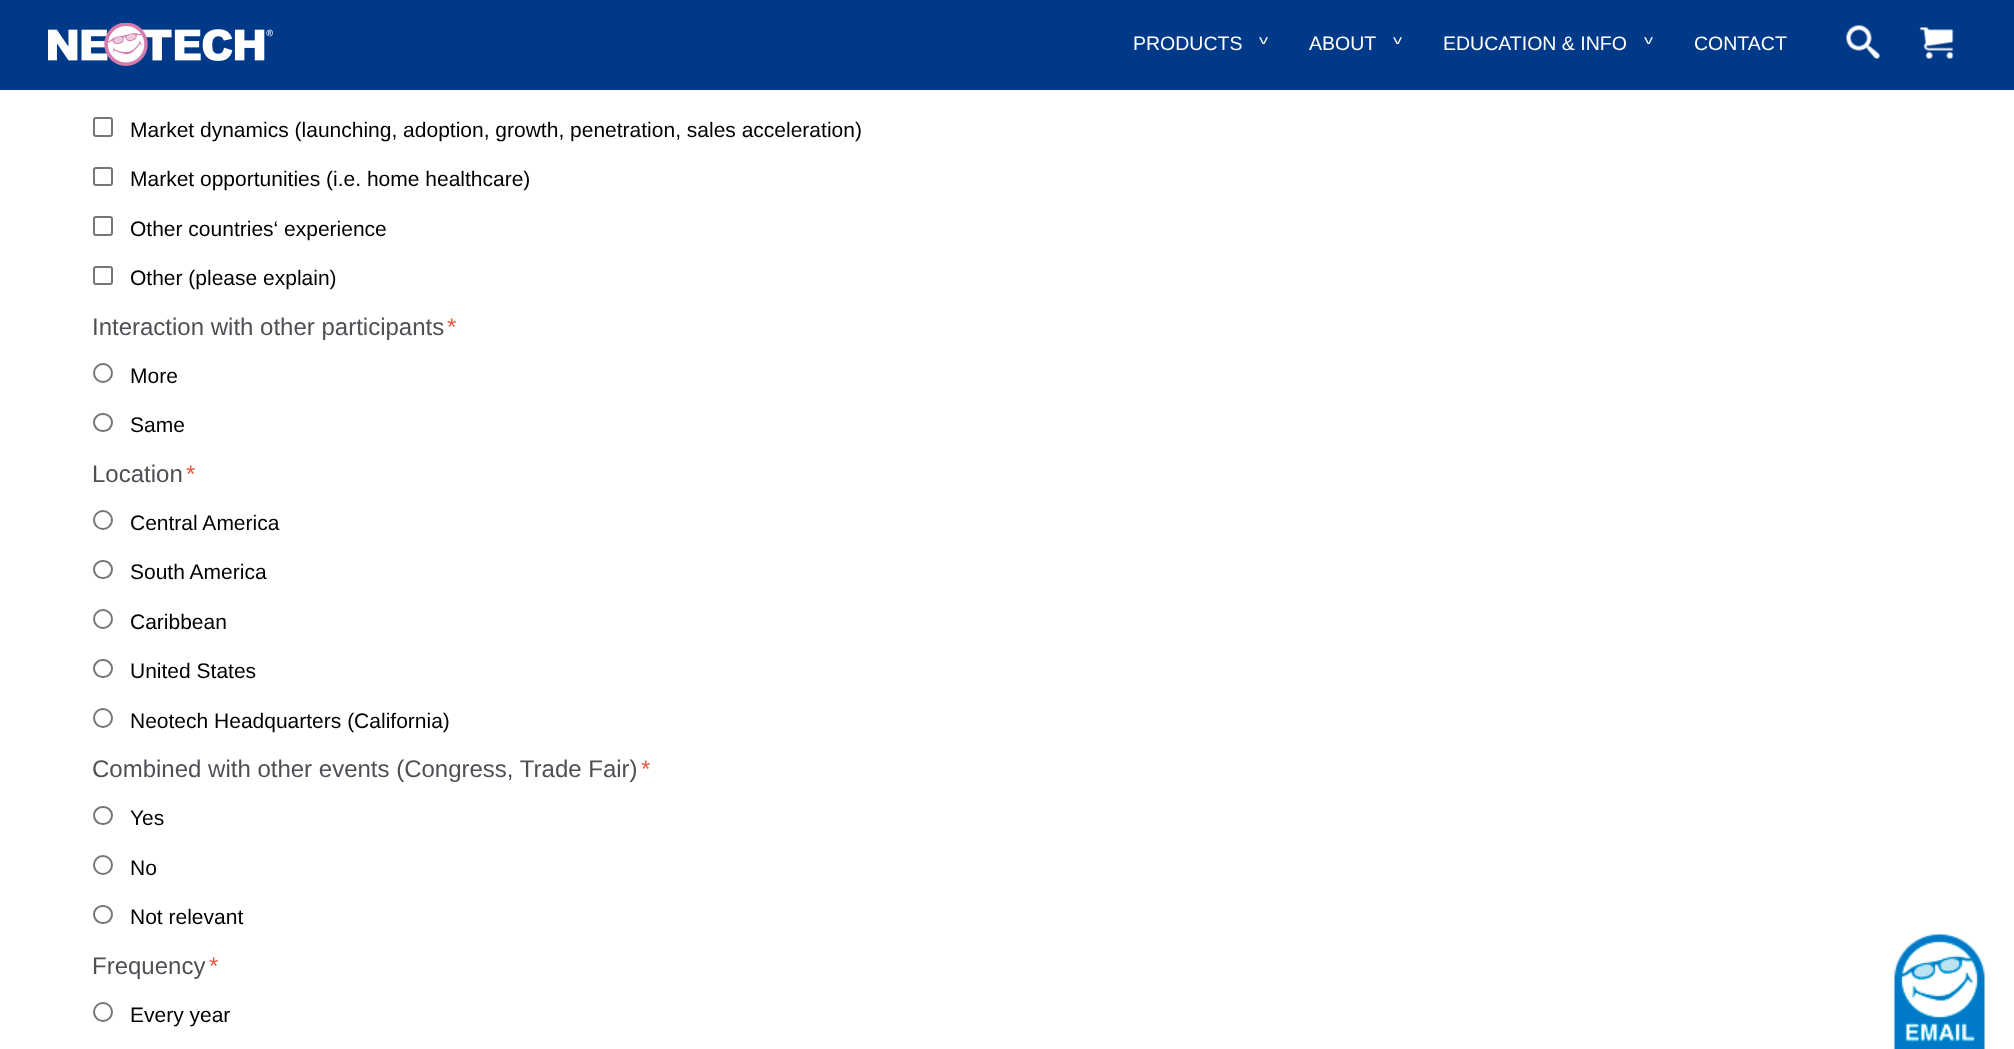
<!DOCTYPE html>
<meta charset="utf-8">
<style>body { margin: 0 } canvas { display: block }</style>
<canvas id="canvas" width="2014" height="1049"></canvas>
<script type="module">
  const canvas = document.getElementById("canvas");
  const g = canvas.getContext("2d");
  g.miterLimit = 4;
  g.fontKerning = "normal";
  function drawText(s, x, y, [font, color]) {
    g.font = font;
    g.fillStyle = color;
    g.fillText(s, x, y);
  }
  function fillBox(x, y, w, h, color) {
    g.fillStyle = color;
    g.fillRect(x, y, w, h);
  }
  async function drawPicture(src, x, y, w, h) {
    const img = new Image();
    img.src = src;
    await img.decode();
    g.drawImage(img, x, y, w, h);
  }

  const s1 = ["19.5px Liberation Sans", "#FFFFFF"];
  const s2 = ["21px Liberation Sans", "#000000"];
  const s3 = ["24px Liberation Sans", "#4D5054"];
  const s4 = ["24px Liberation Sans", "#EC5840"];

  fillBox(0, 0, 2014, 1049, "#FFFFFF");
  fillBox(0, 0, 2014, 90, "#003988");
  await drawPicture("pic1.png", 48, 23, 225, 43);
  drawText("PRODUCTS", 1133, 50, s1);
  g.font = "19px Liberation Sans";
  g.save();
  g.translate(1268, 31);
  g.rotate(180 * Math.PI / 180);
  g.fillText("^", 0, 0);
  g.restore();
  drawText("ABOUT", 1309, 50, s1);
  g.font = "19px Liberation Sans";
  g.save();
  g.translate(1402, 31);
  g.rotate(180 * Math.PI / 180);
  g.fillText("^", 0, 0);
  g.restore();
  drawText("EDUCATION & INFO", 1443, 50, s1);
  g.font = "19px Liberation Sans";
  g.save();
  g.translate(1653, 31);
  g.rotate(180 * Math.PI / 180);
  g.fillText("^", 0, 0);
  g.restore();
  drawText("CONTACT", 1694, 50, s1);
  await drawPicture("pic2.png", 1846, 25, 34, 34);
  await drawPicture("pic3.png", 1919, 27, 35, 32);
  g.beginPath();
  g.roundRect(94, 118, 18, 18, 2);
  g.strokeStyle = "#767676";
  g.lineWidth = 2;
  g.stroke();
  drawText("Market dynamics (launching, adoption, growth, penetration, sales acceleration)", 130, 137, s2);
  g.beginPath();
  g.roundRect(94, 168, 18, 17, 2);
  g.stroke();
  drawText("Market opportunities (i.e. home healthcare)", 130, 186, s2);
  g.beginPath();
  g.roundRect(94, 217, 18, 18, 2);
  g.stroke();
  drawText("Other countries‘ experience", 130, 236, s2);
  g.beginPath();
  g.roundRect(94, 267, 18, 17, 2);
  g.stroke();
  drawText("Other (please explain)", 130, 285, s2);
  drawText("Interaction with other participants", 92, 335, s3);
  drawText("*", 447, 335, s4);
  g.beginPath();
  g.arc(103, 373, 9, 0, Math.PI * 2);
  g.stroke();
  drawText("More", 130, 383, s2);
  g.beginPath();
  g.roundRect(94, 414, 18, 17, 8.5);
  g.stroke();
  drawText("Same", 130, 432, s2);
  drawText("Location", 92, 482, s3);
  drawText("*", 186, 482, s4);
  g.beginPath();
  g.arc(103, 520, 9, 0, Math.PI * 2);
  g.stroke();
  drawText("Central America", 130, 530, s2);
  g.beginPath();
  g.roundRect(94, 561, 18, 17, 8.5);
  g.stroke();
  drawText("South America", 130, 579, s2);
  g.beginPath();
  g.arc(103, 619, 9, 0, Math.PI * 2);
  g.stroke();
  drawText("Caribbean", 130, 629, s2);
  g.beginPath();
  g.roundRect(94, 660, 18, 17, 8.5);
  g.stroke();
  drawText("United States", 130, 678, s2);
  g.beginPath();
  g.arc(103, 718, 9, 0, Math.PI * 2);
  g.stroke();
  drawText("Neotech Headquarters (California)", 130, 728, s2);
  drawText("Combined with other events (Congress, Trade Fair)", 92, 777, s3);
  drawText("*", 641, 777, s4);
  g.beginPath();
  g.roundRect(94, 807, 18, 17, 8.5);
  g.stroke();
  drawText("Yes", 130, 825, s2);
  g.beginPath();
  g.arc(103, 865, 9, 0, Math.PI * 2);
  g.stroke();
  drawText("No", 130, 875, s2);
  g.beginPath();
  g.roundRect(94, 906, 18, 17, 8.5);
  g.stroke();
  drawText("Not relevant", 130, 924, s2);
  drawText("Frequency", 92, 974, s3);
  drawText("*", 209, 974, s4);
  g.beginPath();
  g.arc(103, 1012, 9, 0, Math.PI * 2);
  g.stroke();
  drawText("Every year", 130, 1022, s2);
  await drawPicture("pic4.png", 1894, 934, 91, 115);
</script>
